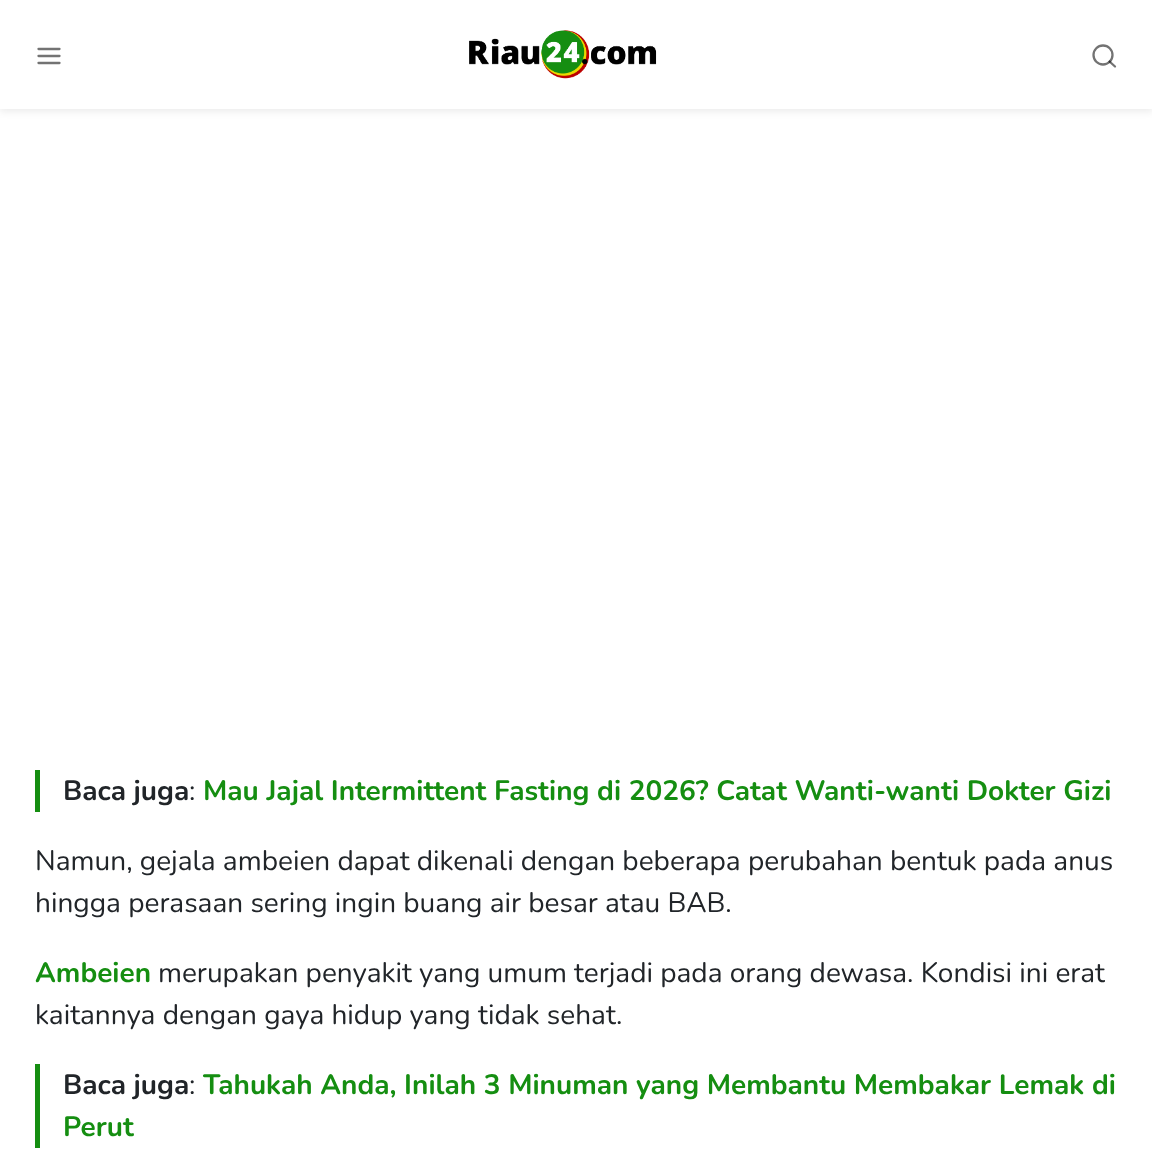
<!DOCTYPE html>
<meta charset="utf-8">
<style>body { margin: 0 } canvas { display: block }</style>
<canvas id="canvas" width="1152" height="1159"></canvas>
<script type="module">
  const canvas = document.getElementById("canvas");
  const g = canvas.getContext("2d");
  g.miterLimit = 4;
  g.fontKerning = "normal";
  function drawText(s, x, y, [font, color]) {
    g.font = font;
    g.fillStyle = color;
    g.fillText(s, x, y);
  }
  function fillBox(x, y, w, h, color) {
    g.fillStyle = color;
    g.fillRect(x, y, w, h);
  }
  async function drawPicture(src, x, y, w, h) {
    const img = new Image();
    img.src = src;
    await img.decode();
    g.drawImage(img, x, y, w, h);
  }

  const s1 = ["bold 28px Nunito", "#212529"];
  const s2 = ["28px Nunito", "#212529"];
  const s3 = ["bold 28px Nunito", "#158E11"];

  fillBox(0, 0, 1152, 1159, "#FFFFFF");
  g.fillStyle = "rgba(0, 0, 0, 0.07)";
  g.filter = "blur(3.5px)";
  g.beginPath();
  g.rect(0, 4, 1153, 108);
  g.fill();
  g.filter = "none";
  fillBox(0, 0, 1152, 109, "#FFFFFF");
  g.beginPath();
  g.moveTo(38.5, 56);
  g.lineTo(59.5, 56);
  g.moveTo(38.5, 49);
  g.lineTo(59.5, 49);
  g.moveTo(38.5, 63);
  g.lineTo(59.5, 63);
  g.strokeStyle = "#737373";
  g.lineWidth = 2.3;
  g.lineCap = "round";
  g.lineJoin = "round";
  g.stroke();
  await drawPicture("pic1.png", 469, 30, 188, 49);
  g.beginPath();
  g.arc(1103, 55, 9.5, 0, Math.PI * 2);
  g.stroke();
  g.beginPath();
  g.moveTo(1115, 66.5);
  g.lineTo(1109.5, 61.5);
  g.strokeStyle = "rgba(0, 0, 0, 0.55)";
  g.stroke();
  fillBox(35, 770, 5, 42, "#158E11");
  drawText("Baca juga", 63, 800, s1);
  drawText(":", 189, 800, s2);
  drawText("Mau Jajal Intermittent Fasting di 2026? Catat Wanti-wanti Dokter Gizi", 203, 800, s3);
  drawText("Namun, gejala ambeien dapat dikenali dengan beberapa perubahan bentuk pada anus", 35, 870, s2);
  drawText("hingga perasaan sering ingin buang air besar atau BAB.", 35, 912, s2);
  drawText("Ambeien", 35, 982, s3);
  drawText("merupakan penyakit yang umum terjadi pada orang dewasa. Kondisi ini erat", 158, 982, s2);
  drawText("kaitannya dengan gaya hidup yang tidak sehat.", 35, 1024, s2);
  fillBox(35, 1064, 5, 84, "#158E11");
  drawText("Baca juga", 63, 1094, s1);
  drawText(":", 189, 1094, s2);
  drawText("Tahukah Anda, Inilah 3 Minuman yang Membantu Membakar Lemak di", 203, 1094, s3);
  drawText("Perut", 63, 1136, s3);
</script>
